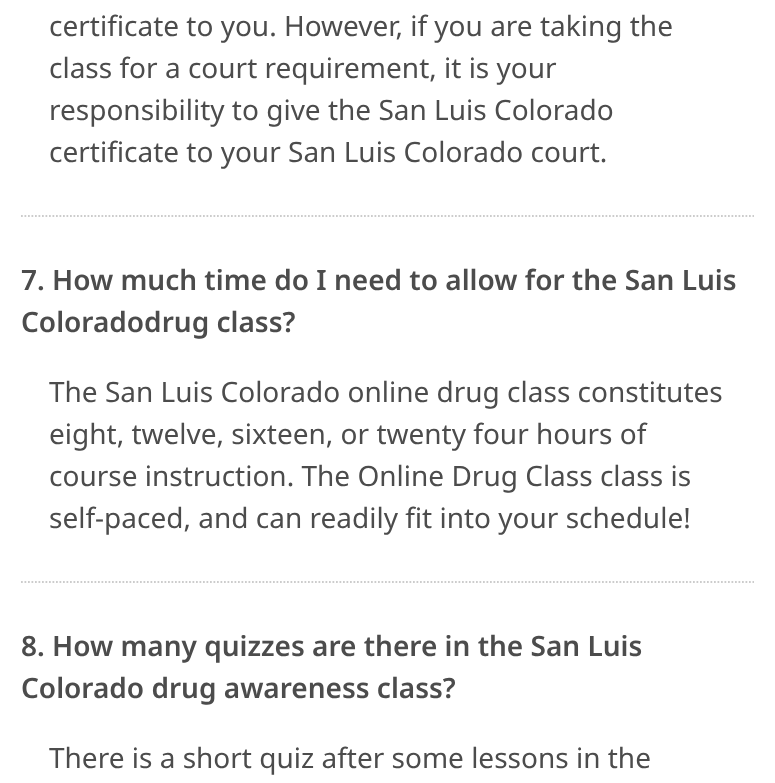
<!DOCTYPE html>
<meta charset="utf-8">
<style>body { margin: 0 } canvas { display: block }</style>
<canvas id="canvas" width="775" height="783"></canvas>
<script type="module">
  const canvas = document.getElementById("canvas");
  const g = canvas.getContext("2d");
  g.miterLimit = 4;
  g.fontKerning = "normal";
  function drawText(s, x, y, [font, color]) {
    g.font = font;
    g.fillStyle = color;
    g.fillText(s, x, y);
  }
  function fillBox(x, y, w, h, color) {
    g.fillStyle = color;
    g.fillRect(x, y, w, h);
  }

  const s1 = ["28px Noto Sans", "#4C4C4C"];
  const s2 = ["600 28px Noto Sans", "#4C4C4C"];

  fillBox(0, 0, 775, 783, "#FFFFFF");
  g.beginPath();
  g.moveTo(21, 216);
  g.lineTo(754, 216);
  g.strokeStyle = "#CCCCCC";
  g.lineWidth = 1.8;
  g.setLineDash([1.75, 1.75]);
  g.stroke();
  drawText("certificate to you. However, if you are taking the", 49, 36, s1);
  drawText("class for a court requirement, it is your", 49, 78, s1);
  drawText("responsibility to give the San Luis Colorado", 49, 120, s1);
  drawText("certificate to your San Luis Colorado court.", 49, 162, s1);
  g.beginPath();
  g.moveTo(21, 582);
  g.lineTo(754, 582);
  g.stroke();
  drawText("7. How much time do I need to allow for the San Luis", 21, 290, s2);
  drawText("Coloradodrug class?", 21, 332, s2);
  drawText("The San Luis Colorado online drug class constitutes", 49, 402, s1);
  drawText("eight, twelve, sixteen, or twenty four hours of", 49, 444, s1);
  drawText("course instruction. The Online Drug Class class is", 49, 486, s1);
  drawText("self-paced, and can readily fit into your schedule!", 49, 528, s1);
  drawText("8. How many quizzes are there in the San Luis", 21, 656, s2);
  drawText("Colorado drug awareness class?", 21, 698, s2);
  drawText("There is a short quiz after some lessons in the", 49, 768, s1);
</script>
